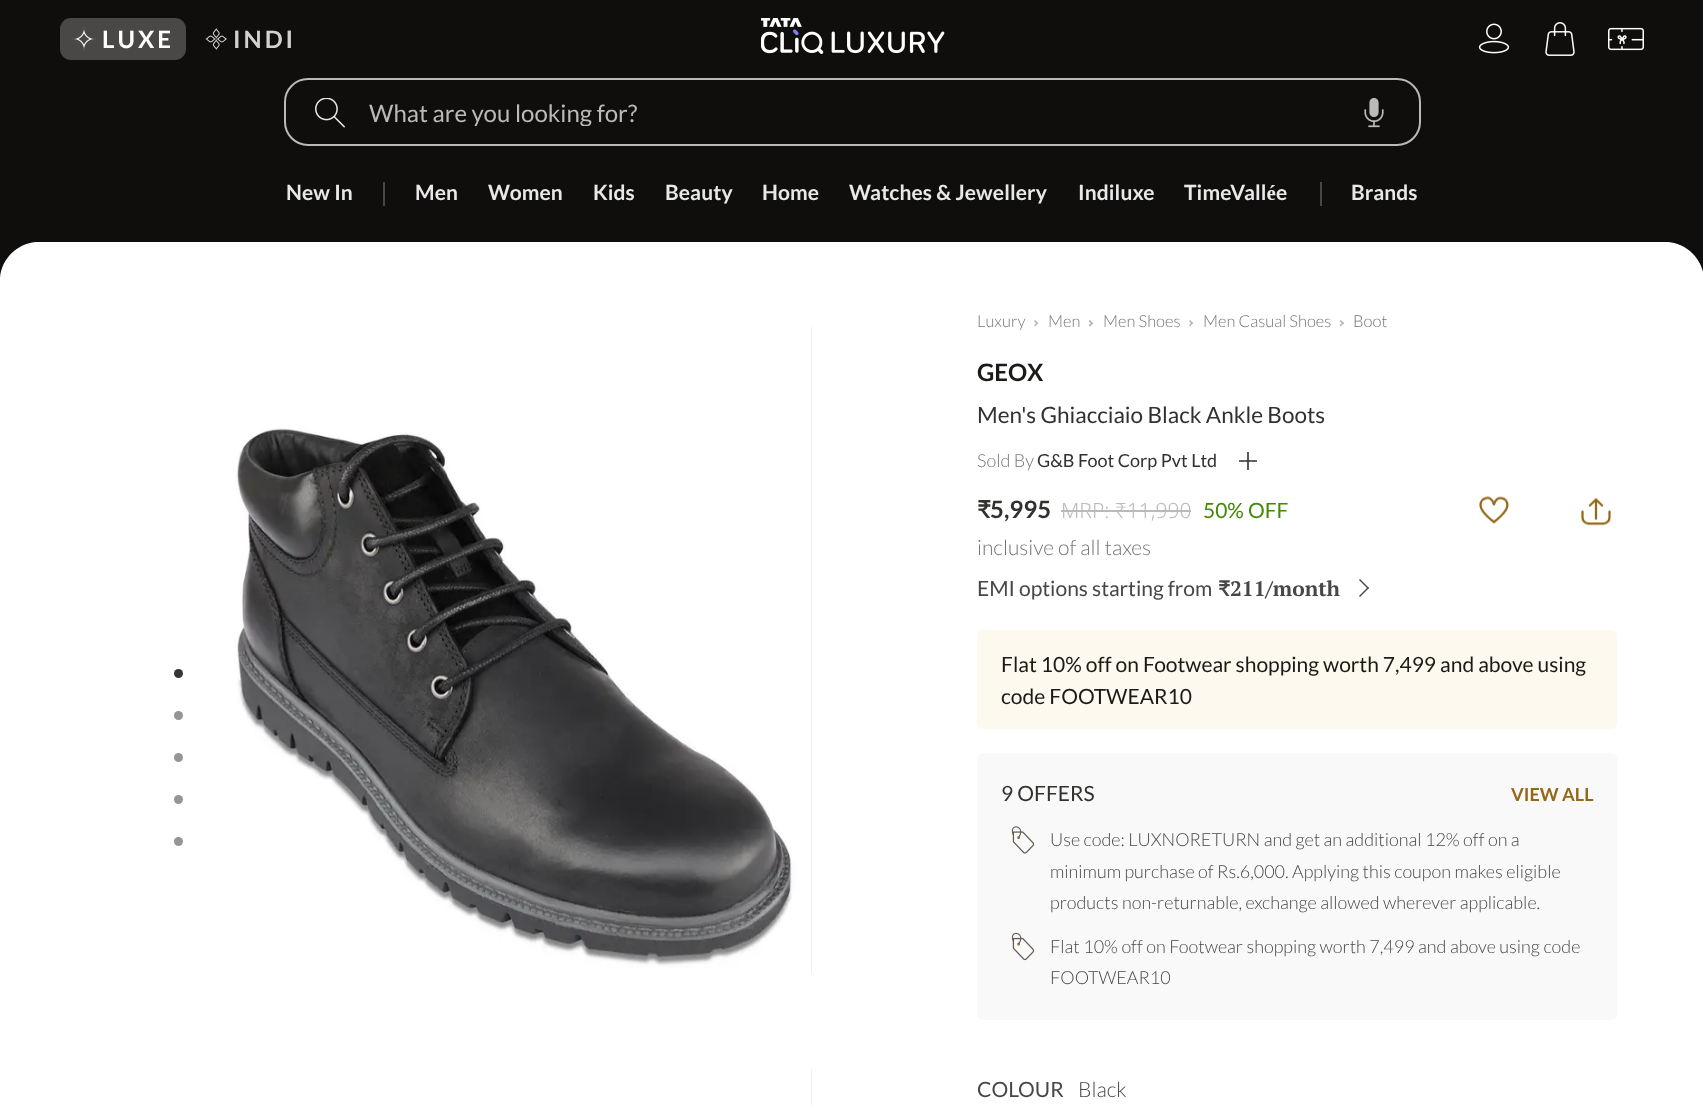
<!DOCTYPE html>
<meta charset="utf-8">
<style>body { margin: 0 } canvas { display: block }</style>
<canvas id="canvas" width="1703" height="1105"></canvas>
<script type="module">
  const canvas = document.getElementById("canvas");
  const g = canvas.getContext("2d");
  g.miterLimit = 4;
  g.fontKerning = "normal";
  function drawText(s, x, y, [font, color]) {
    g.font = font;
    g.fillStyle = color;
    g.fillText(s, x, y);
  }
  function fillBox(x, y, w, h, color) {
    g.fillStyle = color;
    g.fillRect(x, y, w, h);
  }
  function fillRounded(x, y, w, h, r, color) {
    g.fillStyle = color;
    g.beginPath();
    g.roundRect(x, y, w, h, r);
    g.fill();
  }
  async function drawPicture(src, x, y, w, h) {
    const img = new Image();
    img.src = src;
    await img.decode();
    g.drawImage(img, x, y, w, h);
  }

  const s1 = ["bold 24px Lato", "#FFFFFF"];
  const s2 = ["bold 24px Lato", "#D1D1D0"];
  const s3 = ["24px Lato", "#BBBAB9"];
  const s4 = ["bold 21px Lato", "#E8E8E8"];
  const s5 = ["300 16.5px Lato", "#767573"];
  const s6 = ["bold 24px Lato", "#1C1A17"];
  const s7 = ["22.5px Lato", "#33312E"];
  const s8 = ["300 18px Lato", "#767573"];
  const s9 = ["18px Lato", "#33312E"];
  const s10 = ["bold 24px 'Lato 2'", "#33312E"];
  const s11 = ["bold 24px Lato", "#33312E"];
  const s12 = ["300 21px Noto Sans", "#BBBAB9"];
  const s13 = ["21px Lato", "#448808"];
  const s14 = ["300 21px Lato", "#767573"];
  const s15 = ["21px Lato", "#494745"];
  const s16 = ["bold 21px 'Lato 2'", "#494745"];
  const s17 = ["bold 21px PT Serif", "#494745"];
  const s18 = ["21px Lato", "#1C1A17"];
  const s19 = ["21px Lato", "#33312E"];
  const s20 = ["bold 18px Lato", "#936917"];
  const s21 = ["300 18px Lato", "#494745"];
  const s22 = ["300 21px Lato", "#494745"];

  fillBox(0, 0, 1703, 1105, "#FFFFFF");
  fillBox(0, 0, 1703, 242, "#0F0E0D");
  fillRounded(60, 18, 126, 42, 11, "#494847");
  await drawPicture("pic1.png", 72, 27, 24, 24);
  g.letterSpacing = "3px";
  drawText("LUXE", 102, 48, s1);
  await drawPicture("pic2.png", 205, 28, 23, 22);
  drawText("INDI", 233, 48, s2);
  await drawPicture("pic3.png", 761, 18, 184, 36);
  await drawPicture("pic4.png", 1478, 23, 32, 31);
  await drawPicture("pic5.png", 1545, 22, 30, 34);
  await drawPicture("pic6.png", 1608, 27, 36, 24);
  g.beginPath();
  g.roundRect(285, 79, 1135, 66, 23);
  g.strokeStyle = "#BBBAB9";
  g.lineWidth = 2;
  g.stroke();
  await drawPicture("pic7.png", 315, 98, 30, 30);
  g.save();
  g.beginPath();
  g.rect(369, 98, 966, 28);
  g.clip();
  g.letterSpacing = "0px";
  drawText("What are you looking for?", 369, 122, s3);
  g.restore();
  await drawPicture("pic8.png", 1364, 98, 20, 30);
  g.letterSpacing = "0.1px";
  drawText("New In", 286, 200, s4);
  fillBox(383, 182, 2, 24, "#494745");
  drawText("Men", 415, 200, s4);
  drawText("Women", 488, 200, s4);
  drawText("Kids", 593, 200, s4);
  drawText("Beauty", 665, 200, s4);
  drawText("Home", 762, 200, s4);
  drawText("Watches & Jewellery", 849, 200, s4);
  drawText("Indiluxe", 1078, 200, s4);
  drawText("TimeVallée", 1184, 200, s4);
  fillBox(1320, 182, 2, 24, "#494745");
  drawText("Brands", 1351, 200, s4);
  g.save();
  g.beginPath();
  g.rect(0, 242, 42, 42);
  g.clip();
  g.fillStyle = "#0F0E0D";
  g.beginPath();
  g.moveTo(42, 242);
  g.bezierCurveTo(19, 240, -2, 260, 0, 284);
  g.lineTo(0, 242);
  g.closePath();
  g.fill();
  g.restore();
  g.save();
  g.beginPath();
  g.rect(1662, 242, 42, 42);
  g.clip();
  g.fillStyle = "#0F0E0D";
  g.beginPath();
  g.moveTo(1662, 242);
  g.bezierCurveTo(1685, 240, 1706, 260, 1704, 284);
  g.lineTo(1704, 242);
  g.closePath();
  g.fill();
  g.restore();
  fillRounded(216, 323, 596, 654, 6, "#EEEEEE");
  await drawPicture("pic9.png", 216, 323, 595, 654);
  fillRounded(216, 1065, 596, 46, 6, "#EEEEEE");
  fillBox(216, 1065, 595, 40, "#FFFFFF");
  g.letterSpacing = "0px";
  drawText("Luxury", 977, 327, s5);
  g.fillStyle = "#B5B5B5";
  g.beginPath();
  g.moveTo(1034, 321);
  g.lineTo(1035, 320);
  g.lineTo(1038, 323);
  g.lineTo(1037, 324.5);
  g.closePath();
  g.fill();
  g.beginPath();
  g.moveTo(1034, 325.5);
  g.lineTo(1037, 322);
  g.lineTo(1038, 323);
  g.lineTo(1035, 326.5);
  g.closePath();
  g.fill();
  drawText("Men", 1048, 327, s5);
  g.fillStyle = "#B5B5B5";
  g.beginPath();
  g.moveTo(1088.5, 321);
  g.lineTo(1090, 320);
  g.lineTo(1093, 323.5);
  g.lineTo(1092, 324.5);
  g.closePath();
  g.fill();
  g.beginPath();
  g.moveTo(1088.5, 325.5);
  g.lineTo(1092, 322);
  g.lineTo(1093, 323.5);
  g.lineTo(1090, 326.5);
  g.closePath();
  g.fill();
  drawText("Men Shoes", 1103, 327, s5);
  g.fillStyle = "#B5B5B5";
  g.beginPath();
  g.moveTo(1189, 321);
  g.lineTo(1190, 320);
  g.lineTo(1193, 323);
  g.lineTo(1192, 324.5);
  g.closePath();
  g.fill();
  g.beginPath();
  g.moveTo(1189, 325.5);
  g.lineTo(1192, 322);
  g.lineTo(1193, 323);
  g.lineTo(1190, 326.5);
  g.closePath();
  g.fill();
  drawText("Men Casual Shoes", 1203, 327, s5);
  g.fillStyle = "#B5B5B5";
  g.beginPath();
  g.moveTo(1339.5, 321);
  g.lineTo(1340.5, 320);
  g.lineTo(1344, 323);
  g.lineTo(1343, 324.5);
  g.closePath();
  g.fill();
  g.beginPath();
  g.moveTo(1339.5, 325.5);
  g.lineTo(1343, 322);
  g.lineTo(1344, 323);
  g.lineTo(1340.5, 326.5);
  g.closePath();
  g.fill();
  drawText("Boot", 1353, 327, s5);
  g.fillStyle = "#353535";
  g.beginPath();
  g.arc(178.5, 673.5, 4.5, 0, Math.PI * 2);
  g.fill();
  g.fillStyle = "#959595";
  g.beginPath();
  g.arc(178.5, 715.5, 4.5, 0, Math.PI * 2);
  g.fill();
  g.beginPath();
  g.arc(178.5, 757.5, 4.5, 0, Math.PI * 2);
  g.fill();
  g.beginPath();
  g.arc(178.5, 799.5, 4.5, 0, Math.PI * 2);
  g.fill();
  g.beginPath();
  g.arc(178.5, 841.5, 4.5, 0, Math.PI * 2);
  g.fill();
  drawText("GEOX", 977, 381, s6);
  drawText("Men's Ghiacciaio Black Ankle Boots", 977, 423, s7);
  drawText("Sold By", 977, 467, s8);
  drawText("G&B Foot Corp Pvt Ltd", 1037, 467, s9);
  g.save();
  g.beginPath();
  g.rect(1239, 452, 18, 18);
  g.clip();
  g.beginPath();
  g.moveTo(1248, 448);
  g.lineTo(1248, 474);
  g.moveTo(1235, 461);
  g.lineTo(1261, 461);
  g.strokeStyle = "#33312E";
  g.lineWidth = 1.6;
  g.lineCap = "round";
  g.lineJoin = "round";
  g.stroke();
  g.restore();
  drawText("₹", 977, 518, s10);
  drawText("5,995", 990, 518, s11);
  drawText("MRP: ₹11,990", 1061, 518, s12);
  fillBox(1061, 510, 130, 2, "#BBBAB9");
  drawText("50% OFF", 1203, 518, s13);
  await drawPicture("pic10.png", 1479, 496, 30, 28);
  await drawPicture("pic11.png", 1581, 497, 30, 29);
  drawText("inclusive of all taxes", 977, 555, s14);
  drawText("EMI options starting from", 977, 596, s15);
  drawText("₹", 1218, 596, s16);
  drawText("211/month", 1230, 596, s17);
  g.beginPath();
  g.moveTo(1360, 579);
  g.lineTo(1369, 588);
  g.lineTo(1368, 589);
  g.lineTo(1359, 580);
  g.closePath();
  g.fill();
  g.beginPath();
  g.moveTo(1368, 587);
  g.lineTo(1369, 588);
  g.lineTo(1360, 597);
  g.lineTo(1359, 596);
  g.closePath();
  g.fill();
  fillRounded(977, 630, 640, 99, 6, "#FEF9EE");
  drawText("Flat 10% off on Footwear shopping worth 7,499 and above using", 1001, 672, s18);
  drawText("code FOOTWEAR10", 1001, 704, s18);
  fillRounded(977, 753, 640, 267, 6, "#F9F9F9");
  drawText("9 OFFERS", 1001, 801, s19);
  drawText("VIEW ALL", 1511, 801, s20);
  await drawPicture("pic12.png", 1011, 826, 24, 28);
  drawText("Use code: LUXNORETURN and get an additional 12% off on a", 1050, 846, s21);
  drawText("minimum purchase of Rs.6,000. Applying this coupon makes eligible", 1050, 878, s21);
  drawText("products non-returnable, exchange allowed wherever applicable.", 1050, 909, s21);
  await drawPicture("pic13.png", 1011, 932, 24, 29);
  drawText("Flat 10% off on Footwear shopping worth 7,499 and above using code", 1050, 953, s21);
  drawText("FOOTWEAR10", 1050, 984, s21);
  drawText("COLOUR", 977, 1097, s15);
  drawText("Black", 1078, 1097, s22);
</script>
